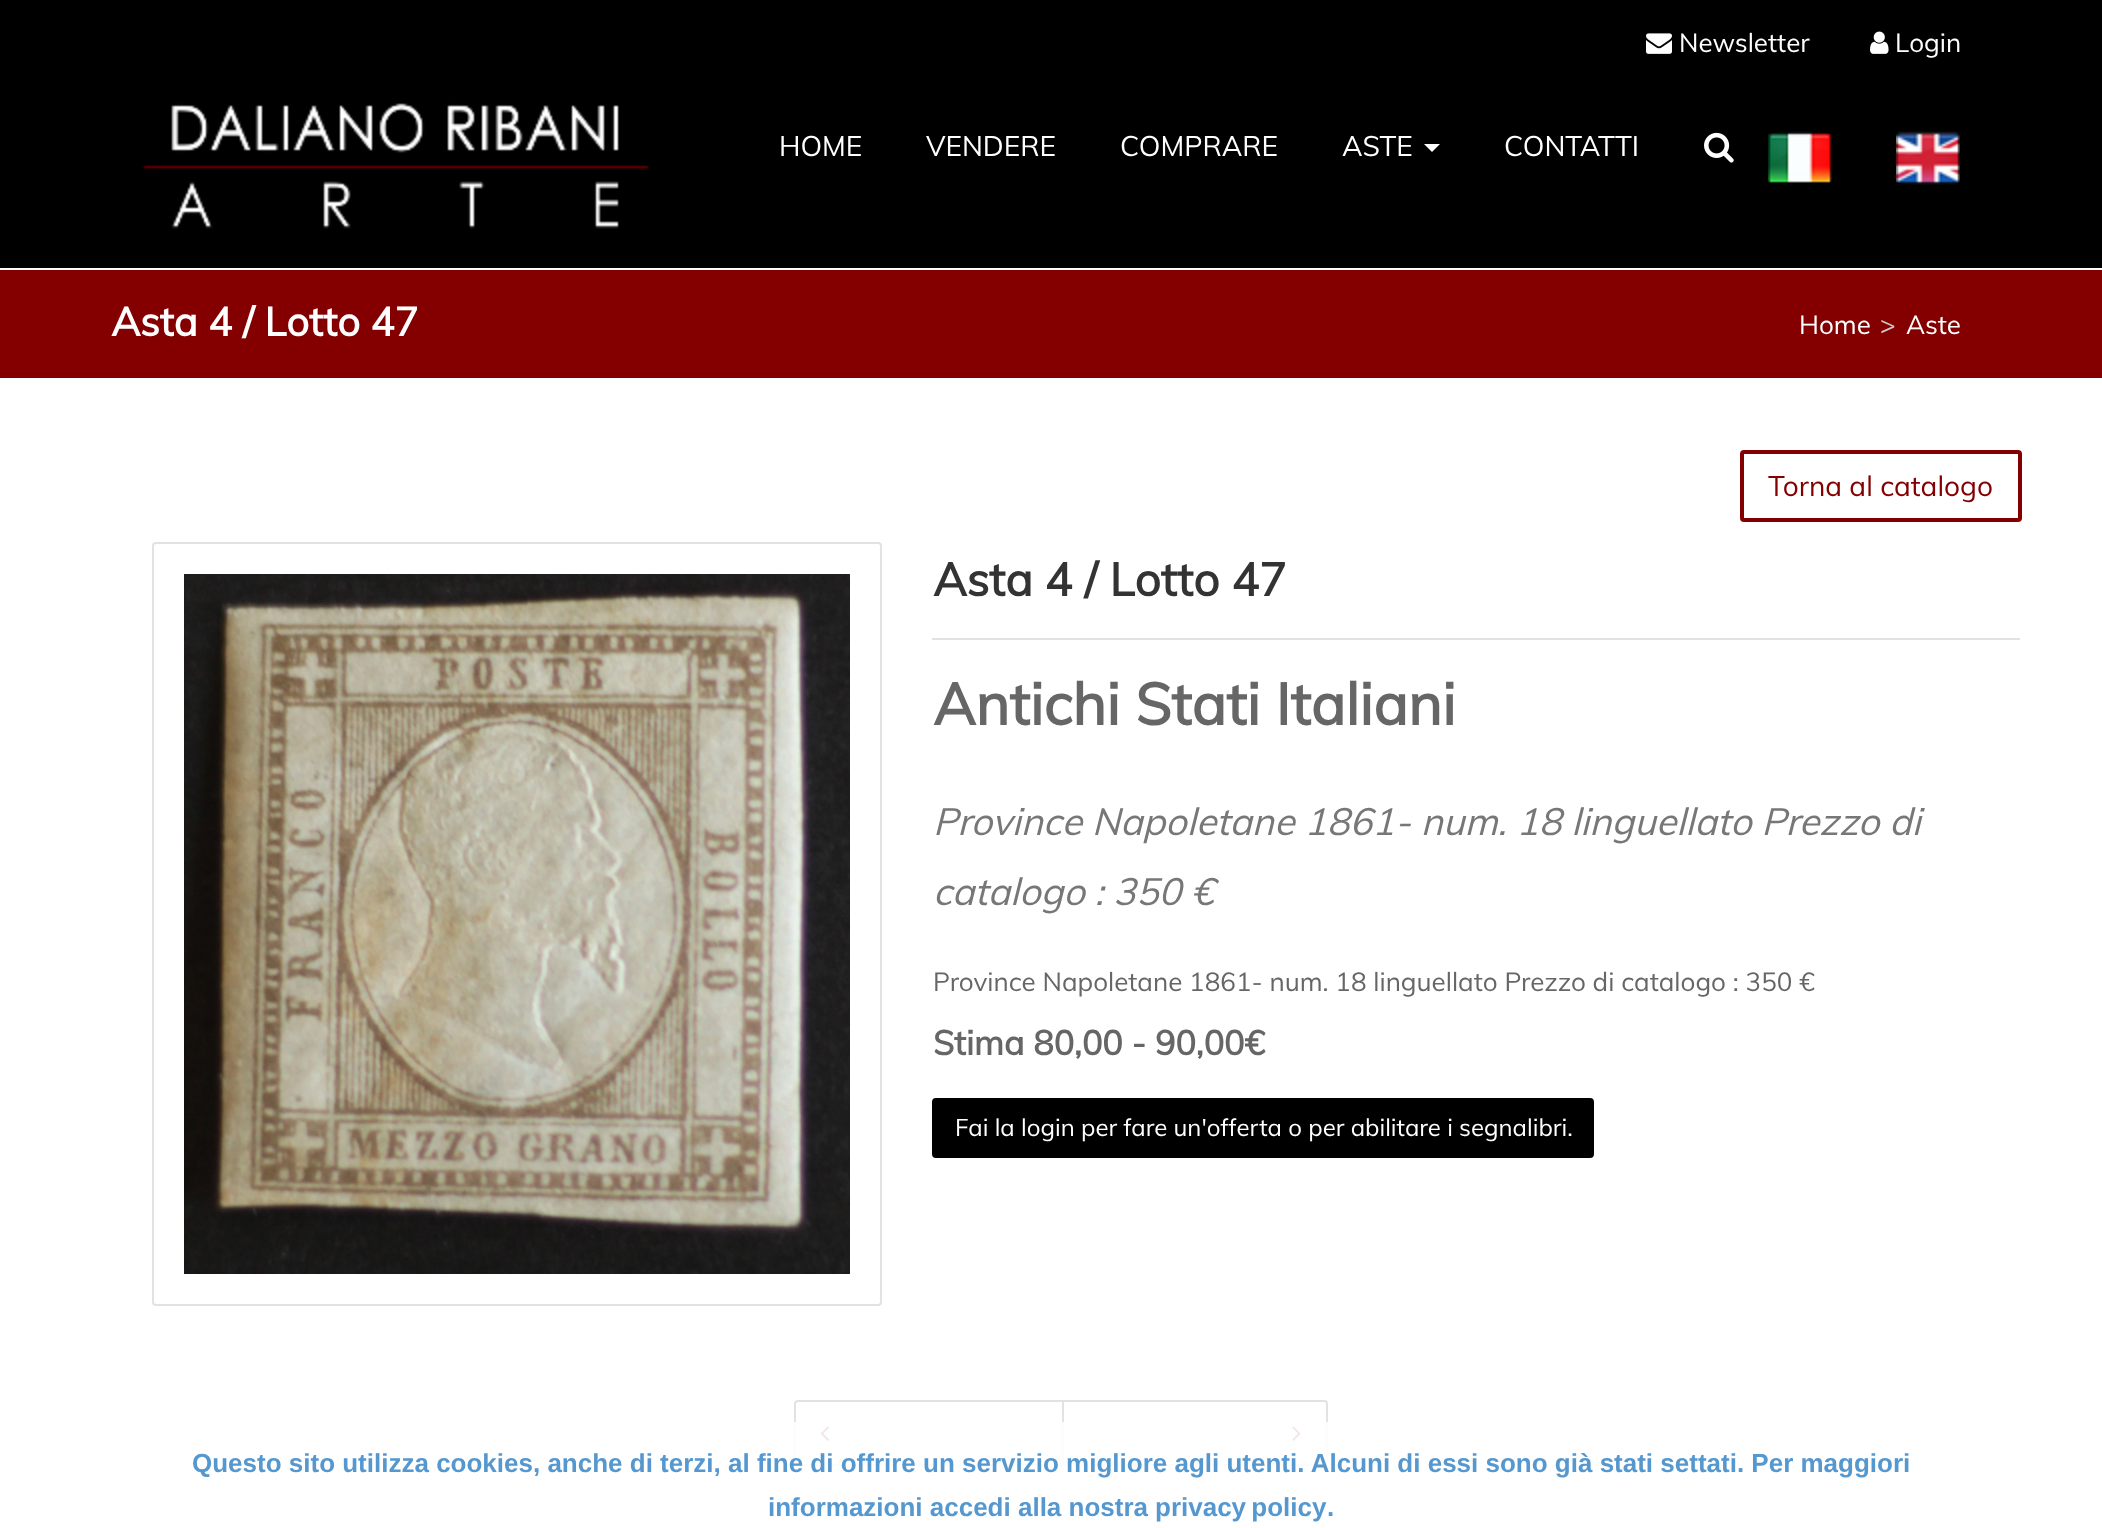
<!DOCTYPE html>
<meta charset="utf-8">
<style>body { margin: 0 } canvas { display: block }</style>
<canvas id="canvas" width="2102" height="1528"></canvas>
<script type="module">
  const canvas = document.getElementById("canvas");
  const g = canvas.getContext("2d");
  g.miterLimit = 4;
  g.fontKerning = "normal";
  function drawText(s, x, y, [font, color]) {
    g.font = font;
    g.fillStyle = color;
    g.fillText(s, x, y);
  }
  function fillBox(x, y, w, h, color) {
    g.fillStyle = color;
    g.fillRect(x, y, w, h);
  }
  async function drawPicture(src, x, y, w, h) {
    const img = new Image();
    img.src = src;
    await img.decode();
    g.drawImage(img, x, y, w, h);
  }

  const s1 = ["26px Muli", "#FFFFFF"];
  const s2 = ["28px Muli", "#FFFFFF"];
  const s3 = ["bold 40px Muli", "#FFFFFF"];
  const s4 = ["26px Muli", "#CCCCCC"];
  const s5 = ["28px Muli", "#840000"];
  const s6 = ["bold 46px Muli", "#333333"];
  const s7 = ["bold 58px Muli", "#666666"];
  const s8 = ["italic 37.7px Muli", "#777777"];
  const s9 = ["26px Muli", "#666666"];
  const s10 = ["bold 34px Muli", "#666666"];
  const s11 = ["24px Muli", "#FFFFFF"];
  const s12 = ["bold 26px Liberation Sans", "#5597CF"];

  fillBox(0, 0, 2102, 1528, "#FFFFFF");
  fillBox(0, 0, 2102, 268, "#000000");
  await drawPicture("pic1.png", 1646, 33, 26, 21);
  drawText("Newsletter", 1679, 52, s1);
  await drawPicture("pic2.png", 1870, 31, 19, 23);
  drawText("Login", 1895, 52, s1);
  await drawPicture("pic3.png", 142, 103, 507, 126);
  drawText("HOME", 779, 156, s2);
  drawText("VENDERE", 926, 156, s2);
  drawText("COMPRARE", 1120, 156, s2);
  drawText("ASTE", 1342, 156, s2);
  g.beginPath();
  g.moveTo(1424, 144);
  g.lineTo(1440, 144);
  g.lineTo(1432, 152);
  g.closePath();
  g.fill();
  drawText("CONTATTI", 1504, 156, s2);
  await drawPicture("pic4.png", 1704, 132, 30, 31);
  await drawPicture("pic5.png", 1768, 131, 64, 52);
  await drawPicture("pic6.png", 1896, 131, 64, 54);
  fillBox(0, 270, 2102, 108, "#840000");
  drawText("Asta 4 / Lotto 47", 111, 336, s3);
  drawText("Home", 1799, 334, s1);
  drawText(">", 1880, 334, s4);
  drawText("Aste", 1906, 334, s1);
  g.beginPath();
  g.roundRect(1742, 452, 278, 68, 2);
  g.strokeStyle = "#840000";
  g.lineWidth = 4;
  g.stroke();
  drawText("Torna al catalogo", 1768, 496, s5);
  g.beginPath();
  g.roundRect(153, 543, 728, 762, 3);
  g.strokeStyle = "#E2E2E2";
  g.lineWidth = 2;
  g.stroke();
  await drawPicture("pic7.png", 184, 574, 666, 700);
  drawText("Asta 4 / Lotto 47", 933, 596, s6);
  fillBox(932, 638, 1088, 2, "#E2E2E2");
  drawText("Antichi Stati Italiani", 933, 725, s7);
  drawText("Province Napoletane 1861- num. 18 linguellato Prezzo di", 933, 835, s8);
  drawText("catalogo : 350 €", 933, 905, s8);
  drawText("Province Napoletane 1861- num. 18 linguellato Prezzo di catalogo : 350 €", 933, 991, s9);
  drawText("Stima 80,00 - 90,00€", 933, 1055, s10);
  g.fillStyle = "#000000";
  g.beginPath();
  g.roundRect(933, 1099, 660, 58, 3);
  g.fill();
  g.strokeStyle = "#000000";
  g.stroke();
  drawText("Fai la login per fare un'offerta o per abilitare i segnalibri.", 955, 1136, s11);
  g.beginPath();
  g.roundRect(795, 1401, 268, 64, [3, 0, 0, 3]);
  g.strokeStyle = "#E2E2E2";
  g.stroke();
  await drawPicture("pic8.png", 820, 1426, 10, 15);
  g.beginPath();
  g.roundRect(1063, 1401, 264, 64, [0, 3, 3, 0]);
  g.fill();
  g.stroke();
  await drawPicture("pic9.png", 1292, 1426, 9, 15);
  fillBox(794, 1422, 534, 44, "rgba(255, 255, 255, 0.9)");
  drawText("Questo sito utilizza cookies, anche di terzi, al fine di offrire un servizio migliore agli utenti. Alcuni di essi sono già stati settati. Per maggiori", 192, 1472, s12);
  drawText("informazioni accedi alla nostra", 768, 1516, s12);
  g.wordSpacing = "-2px";
  drawText("privacy policy", 1155, 1516, s12);
  g.wordSpacing = "0px";
  drawText(".", 1327, 1516, s12);
</script>
